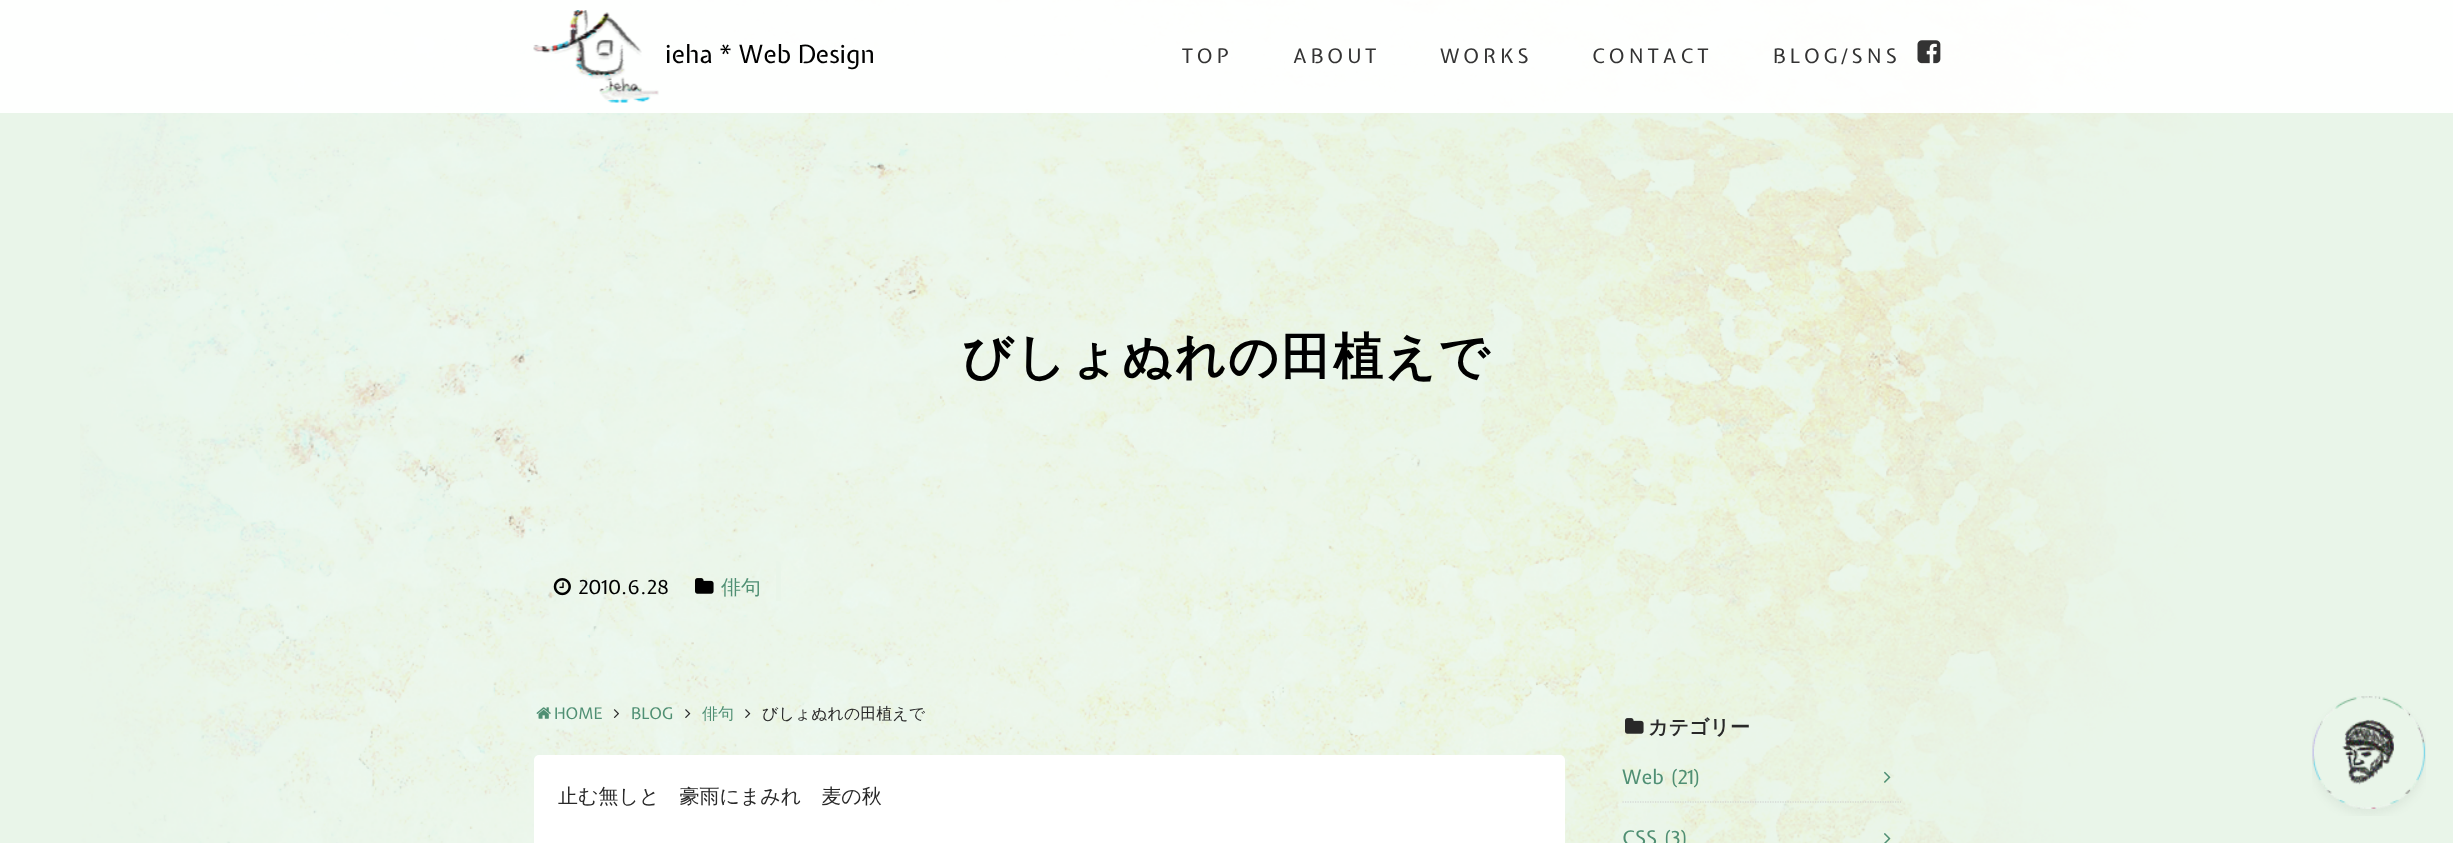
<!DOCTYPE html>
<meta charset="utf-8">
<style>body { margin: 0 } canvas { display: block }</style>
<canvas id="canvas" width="2453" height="843"></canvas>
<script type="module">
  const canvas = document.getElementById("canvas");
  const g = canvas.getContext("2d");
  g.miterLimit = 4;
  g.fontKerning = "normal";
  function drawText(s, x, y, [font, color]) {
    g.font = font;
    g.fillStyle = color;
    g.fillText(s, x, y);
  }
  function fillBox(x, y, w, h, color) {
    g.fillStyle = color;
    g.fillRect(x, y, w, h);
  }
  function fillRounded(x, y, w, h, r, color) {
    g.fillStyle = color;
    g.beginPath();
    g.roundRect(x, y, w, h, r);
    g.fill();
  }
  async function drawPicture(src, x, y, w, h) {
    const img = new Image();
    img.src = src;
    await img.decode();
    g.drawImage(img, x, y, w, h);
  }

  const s1 = ["25px Expletus Sans", "#000000"];
  const s2 = ["20px Expletus Sans", "#333333"];
  const s3 = ["bold 50px WenQuanYi Zen Hei", "#000000"];
  const s4 = ["20px Expletus Sans", "#000000"];
  const s5 = ["500 20px WenQuanYi Zen Hei", "#4F8F73"];
  const s6 = ["16px Expletus Sans", "#4F8F73"];
  const s7 = ["500 16px WenQuanYi Zen Hei", "#4F8F73"];
  const s8 = ["500 16px WenQuanYi Zen Hei", "#292929"];
  const s9 = ["500 20px WenQuanYi Zen Hei", "#292929"];
  const s10 = ["bold 20px WenQuanYi Zen Hei", "#292929"];
  const s11 = ["20px Expletus Sans", "#4F8F73"];

  fillBox(0, 0, 2453, 843, "#E9F5E9");
  await drawPicture("pic1.png", 80, 0, 2157, 843);
  fillBox(0, 0, 2453, 113, "rgba(255, 255, 255, 0.95)");
  await drawPicture("pic2.png", 533, 10, 126, 93);
  drawText("ieha * Web Design", 665, 63, s1);
  g.letterSpacing = "4px";
  drawText("TOP", 1182, 63, s2);
  drawText("ABOUT", 1293, 63, s2);
  drawText("WORKS", 1440, 63, s2);
  drawText("CONTACT", 1592, 63, s2);
  drawText("BLOG/SNS", 1773, 63, s2);
  await drawPicture("pic3.png", 1917, 40, 24, 24);
  g.letterSpacing = "2px";
  drawText("びしょぬれの田植えで", 962, 374, s3);
  g.fillStyle = "#E9F5E9";
  g.beginPath();
  g.roundRect(534, 561, 247, 40, [4, 4, 0, 0]);
  g.fill();
  await drawPicture("pic4.png", 534, 561, 242, 40);
  await drawPicture("pic5.png", 553, 578, 18, 18);
  g.letterSpacing = "0px";
  drawText("2010.6.28", 578, 594, s4);
  await drawPicture("pic6.png", 695, 578, 19, 16);
  drawText("俳句", 721, 594, s5);
  await drawPicture("pic7.png", 536, 707, 15, 12);
  drawText("HOME", 554, 719, s6);
  await drawPicture("pic8.png", 613, 709, 6, 9);
  drawText("BLOG", 631, 719, s6);
  await drawPicture("pic9.png", 685, 709, 6, 9);
  drawText("俳句", 702, 719, s7);
  await drawPicture("pic10.png", 745, 709, 6, 9);
  drawText("びしょぬれの田植えで", 762, 719, s8);
  fillRounded(534, 755, 1031, 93, 5, "#FFFFFF");
  drawText("止む無しと　豪雨にまみれ　麦の秋", 558, 803, s9);
  await drawPicture("pic11.png", 1625, 718, 19, 16);
  drawText("カテゴリー", 1648, 734, s10);
  g.beginPath();
  g.moveTo(1622.5, 802);
  g.lineTo(1901, 802);
  g.strokeStyle = "#CCCCCC";
  g.lineWidth = 1.2;
  g.setLineDash([1.25, 1.25]);
  g.stroke();
  drawText("Web (21)", 1622, 784, s11);
  await drawPicture("pic12.png", 1884, 771, 7, 12);
  drawText("CSS (3)", 1622, 845, s11);
  await drawPicture("pic13.png", 1884, 833, 7, 10);
  await drawPicture("pic14.png", 2312, 696, 114, 120);
</script>
